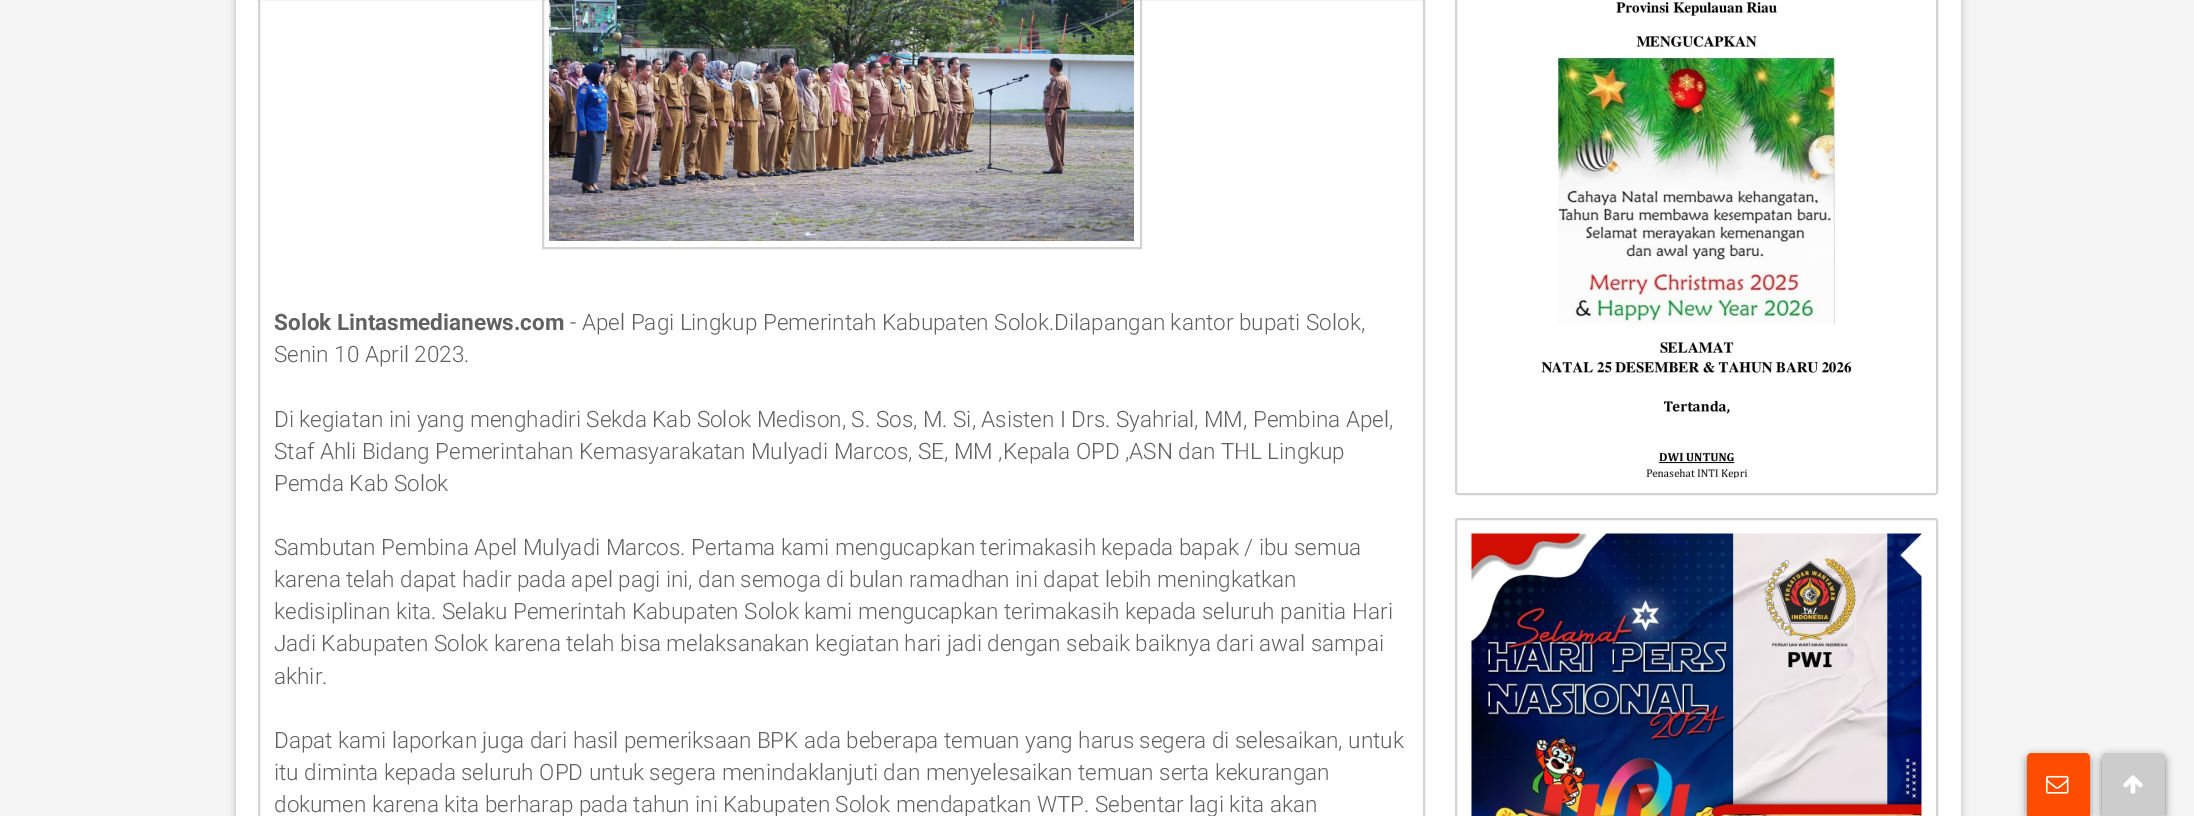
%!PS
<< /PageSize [2194 816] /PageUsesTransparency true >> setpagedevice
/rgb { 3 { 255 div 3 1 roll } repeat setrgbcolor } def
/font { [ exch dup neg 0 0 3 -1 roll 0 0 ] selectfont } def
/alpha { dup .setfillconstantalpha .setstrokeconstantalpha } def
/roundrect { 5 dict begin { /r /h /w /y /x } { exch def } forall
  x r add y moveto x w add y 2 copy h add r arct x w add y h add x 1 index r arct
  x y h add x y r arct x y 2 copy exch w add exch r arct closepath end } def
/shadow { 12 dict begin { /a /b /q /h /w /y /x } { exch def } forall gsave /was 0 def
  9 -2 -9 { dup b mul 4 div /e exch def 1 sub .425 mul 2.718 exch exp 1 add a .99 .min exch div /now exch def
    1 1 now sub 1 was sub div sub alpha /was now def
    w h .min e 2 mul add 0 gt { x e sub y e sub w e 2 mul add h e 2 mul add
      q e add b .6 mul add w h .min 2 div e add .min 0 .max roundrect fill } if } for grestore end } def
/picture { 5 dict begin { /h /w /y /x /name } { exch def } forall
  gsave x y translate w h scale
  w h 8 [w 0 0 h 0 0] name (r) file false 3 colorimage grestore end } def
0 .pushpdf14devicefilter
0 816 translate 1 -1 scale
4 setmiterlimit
245 245 245 rgb
0 0 2194 816 rectfill
0 0 0 rgb
236 -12 1725 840 0 4 0.25 shadow
255 255 255 rgb
236 0 1725 816 rectfill
211 211 211 rgb
2 setlinewidth
259 -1 1165 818 rectstroke
543 -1 598 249 rectstroke
(img/1.rgb) 549 0 585 241 picture
1456 -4 481 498 2 roundrect stroke
(img/2.rgb) 1541 2 311 476 picture
1456 519 481 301 2 roundrect stroke
(img/3.rgb) 1471 533 451 283 picture
0 0 0 rgb
2102 756 63 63 5 4 0.5 shadow
204 204 204 rgb
2107 753 moveto 2160 753 lineto 2163 753 2165 755 2165 758 curveto 2165 816 lineto 2102 816 lineto 2102 758 lineto 2102 755 2104 753 2107 753 curveto closepath fill
0 0 0 rgb
2027 756 63 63 5 4 0.5 shadow
255 77 0 rgb
2032 753 moveto 2085 753 lineto 2088 753 2090 755 2090 758 curveto 2090 816 lineto 2027 816 lineto 2027 758 lineto 2027 755 2029 753 2032 753 curveto closepath fill
(img/4.rgb) 2046 775 23 19 picture
(img/5.rgb) 2123 775 20 19 picture
/Roboto-Bold 22.5 font
97 97 97 rgb
274 330 moveto (Solok Lintasmedianews.com) show
/Roboto-Light 22.5 font
[
  [(- Apel Pagi Lingkup Pemerintah Kabupaten Solok.Dilapangan kantor bupati Solok,) 570 330]
  [(Senin 10 April 2023.) 274 362]
  [(Di kegiatan ini yang menghadiri Sekda Kab Solok Medison, S. Sos, M. Si, Asisten I Drs. Syahrial, MM, Pembina Apel,) 274 427]
  [(Staf Ahli Bidang Pemerintahan Kemasyarakatan Mulyadi Marcos, SE, MM ,Kepala OPD ,ASN dan THL Lingkup) 274 459]
  [(Pemda Kab Solok) 274 491]
  [(Sambutan Pembina Apel Mulyadi Marcos. Pertama kami mengucapkan terimakasih kepada bapak / ibu semua) 274 555]
  [(karena telah dapat hadir pada apel pagi ini, dan semoga di bulan ramadhan ini dapat lebih meningkatkan) 274 587]
  [(kedisiplinan kita. Selaku Pemerintah Kabupaten Solok kami mengucapkan terimakasih kepada seluruh panitia Hari) 274 619]
  [(Jadi Kabupaten Solok karena telah bisa melaksanakan kegiatan hari jadi dengan sebaik baiknya dari awal sampai) 274 651]
  [(akhir.) 274 684]
  [(Dapat kami laporkan juga dari hasil pemeriksaan BPK ada beberapa temuan yang harus segera di selesaikan, untuk) 274 748]
  [(itu diminta kepada seluruh OPD untuk segera menindaklanjuti dan menyelesaikan temuan serta kekurangan) 274 780]
  [(dokumen karena kita berharap pada tahun ini Kabupaten Solok mendapatkan WTP. Sebentar lagi kita akan) 274 812]
] { aload pop moveto show } forall
.poppdf14devicefilter showpage
